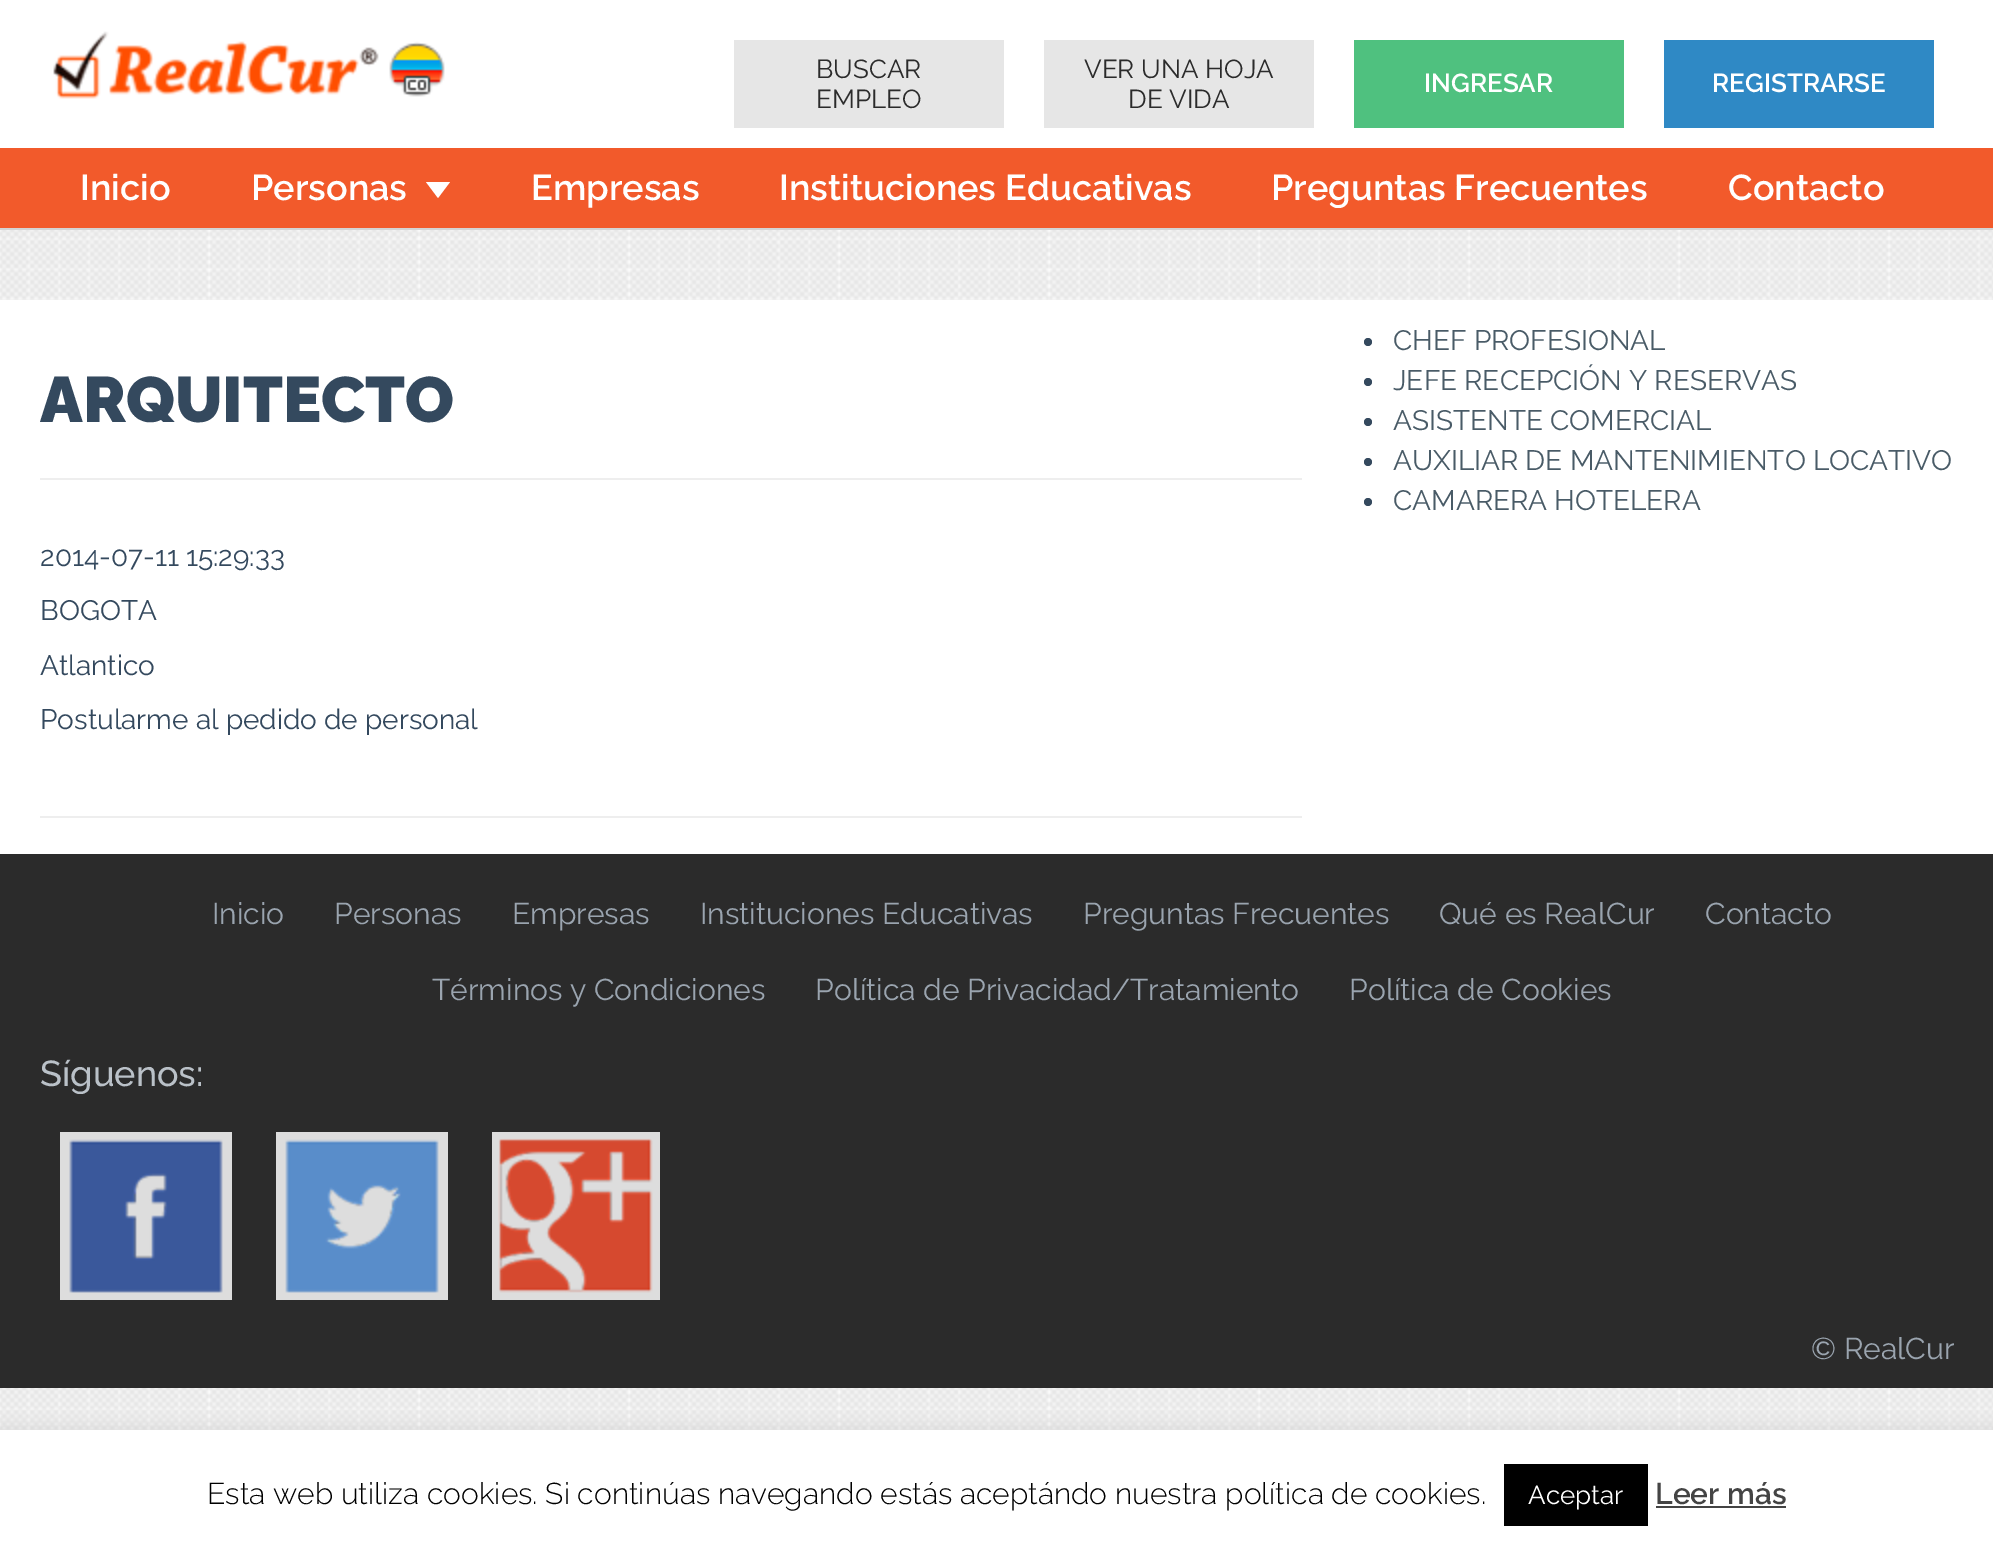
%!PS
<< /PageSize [1993 1550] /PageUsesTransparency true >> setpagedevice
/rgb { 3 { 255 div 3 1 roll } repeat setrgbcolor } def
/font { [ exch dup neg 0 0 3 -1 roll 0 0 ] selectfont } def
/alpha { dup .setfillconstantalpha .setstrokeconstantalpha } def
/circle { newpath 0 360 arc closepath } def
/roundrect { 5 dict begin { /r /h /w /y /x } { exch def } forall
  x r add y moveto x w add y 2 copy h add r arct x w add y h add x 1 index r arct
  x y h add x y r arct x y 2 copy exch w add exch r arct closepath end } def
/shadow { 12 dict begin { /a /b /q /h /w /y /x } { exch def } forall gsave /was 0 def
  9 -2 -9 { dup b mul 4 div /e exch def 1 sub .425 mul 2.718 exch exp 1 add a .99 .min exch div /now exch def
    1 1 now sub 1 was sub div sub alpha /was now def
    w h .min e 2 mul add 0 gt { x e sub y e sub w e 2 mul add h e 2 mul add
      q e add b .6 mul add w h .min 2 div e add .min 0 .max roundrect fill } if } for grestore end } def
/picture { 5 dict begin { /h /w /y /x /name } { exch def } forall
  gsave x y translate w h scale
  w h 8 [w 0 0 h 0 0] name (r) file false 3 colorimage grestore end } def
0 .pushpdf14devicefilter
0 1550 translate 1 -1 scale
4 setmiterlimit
255 255 255 rgb
0 0 1993 1550 rectfill
(img/1.rgb) 0 230 1993 1200 picture
(img/2.rgb) 53 31 392 68 picture
[
  [734 40 270 88 230 230 230]
  [1044 40 270 88 230 230 230]
  [1354 40 270 88 79 193 127]
  [1664 40 270 88 47 137 197]
  [0 148 1993 80 242 90 43]
  [0 228 1993 2 212 212 212]
] { aload pop rgb rectfill } forall
255 255 255 rgb
426 182 moveto 450 182 lineto 438 198 lineto closepath fill
[
  [0 300 1993 554 255 255 255]
  [40 816 1262 2 238 238 238]
  [40 478 1262 2 238 238 238]
] { aload pop rgb rectfill } forall
52 73 94 rgb
1368 342 4 circle fill
1368 382 4 circle fill
1368 422 4 circle fill
1368 462 4 circle fill
1368 502 4 circle fill
43 43 43 rgb
0 854 1993 534 rectfill
221 221 221 rgb
60 1132 172 168 rectfill
(img/3.rgb) 69 1139 154 154 picture
276 1132 172 168 rectfill
(img/4.rgb) 285 1139 154 154 picture
492 1132 168 168 rectfill
(img/5.rgb) 498 1138 155 155 picture
172 171 171 rgb
0 1428 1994 120 0 10 0.3 shadow
[
  [0 1430 1993 120 255 255 255]
  [1504 1464 144 62 0 0 0]
  [1656 1506 130 2 68 68 68]
] { aload pop rgb rectfill } forall
/Raleway-Regular 26 font
43 43 43 rgb
[
  [(BUSCAR) 816 78]
  [(EMPLEO) 816 108]
  [(VER UNA HOJA) 1084 78]
  [(DE VIDA) 1128 108]
] { aload pop moveto show } forall
/Raleway-SemiBold 26 font
255 255 255 rgb
1424 92 moveto (INGRESAR) show
1712 92 moveto (REGISTRARSE) show
/Raleway-SemiBold 36 font
[
  [(Inicio) 80 200]
  [(Personas) 251 200]
  [(Empresas) 531 200]
  [(Instituciones Educativas) 779 200]
  [(Preguntas Frecuentes) 1271 200]
  [(Contacto) 1728 200]
] { aload pop moveto show } forall
/Raleway-Black 64 font
52 73 94 rgb
40 422 moveto (ARQUITECTO) show
/Raleway-Regular 28 font
[
  [(2014-07-11 15:29:33) 40 566]
  [(BOGOTA) 40 620]
  [(Atlantico) 40 675]
  [(Postularme al pedido de personal) 40 729]
] { aload pop moveto show } forall
73 91 103 rgb
[
  [(CHEF PROFESIONAL) 1393 350]
  [(JEFE RECEPCIÓN Y RESERVAS) 1393 390]
  [(ASISTENTE COMERCIAL) 1393 430]
  [(AUXILIAR DE MANTENIMIENTO LOCATIVO) 1393 470]
  [(CAMARERA HOTELERA) 1393 510]
] { aload pop moveto show } forall
/Raleway-Regular 30 font
154 164 175 rgb
[
  [(Inicio) 212 924]
  [(Personas) 334 924]
  [(Empresas) 512 924]
  [(Instituciones Educativas) 700 924]
  [(Preguntas Frecuentes) 1083 924]
  [(Qué es RealCur) 1439 924]
  [(Contacto) 1705 924]
  [(Términos y Condiciones) 432 1000]
  [(Política de Privacidad/Tratamiento) 815 1000]
  [(Política de Cookies) 1349 1000]
] { aload pop moveto show } forall
/Raleway-Medium 36 font
186 193 200 rgb
40 1086 moveto (Síguenos:) show
/Raleway-Regular 30 font
154 164 175 rgb
1811 1359 moveto (© RealCur) show
/Raleway-Light 30 font
0 0 0 rgb
207 1504 moveto (Esta web utiliza cookies. Si continúas navegando estás aceptándo nuestra política de cookies.) show
/Raleway-Regular 26 font
255 255 255 rgb
1528 1504 moveto (Aceptar) show
/Raleway-SemiBold 30 font
68 68 68 rgb
1655 1504 moveto (Leer más) show
.poppdf14devicefilter showpage
